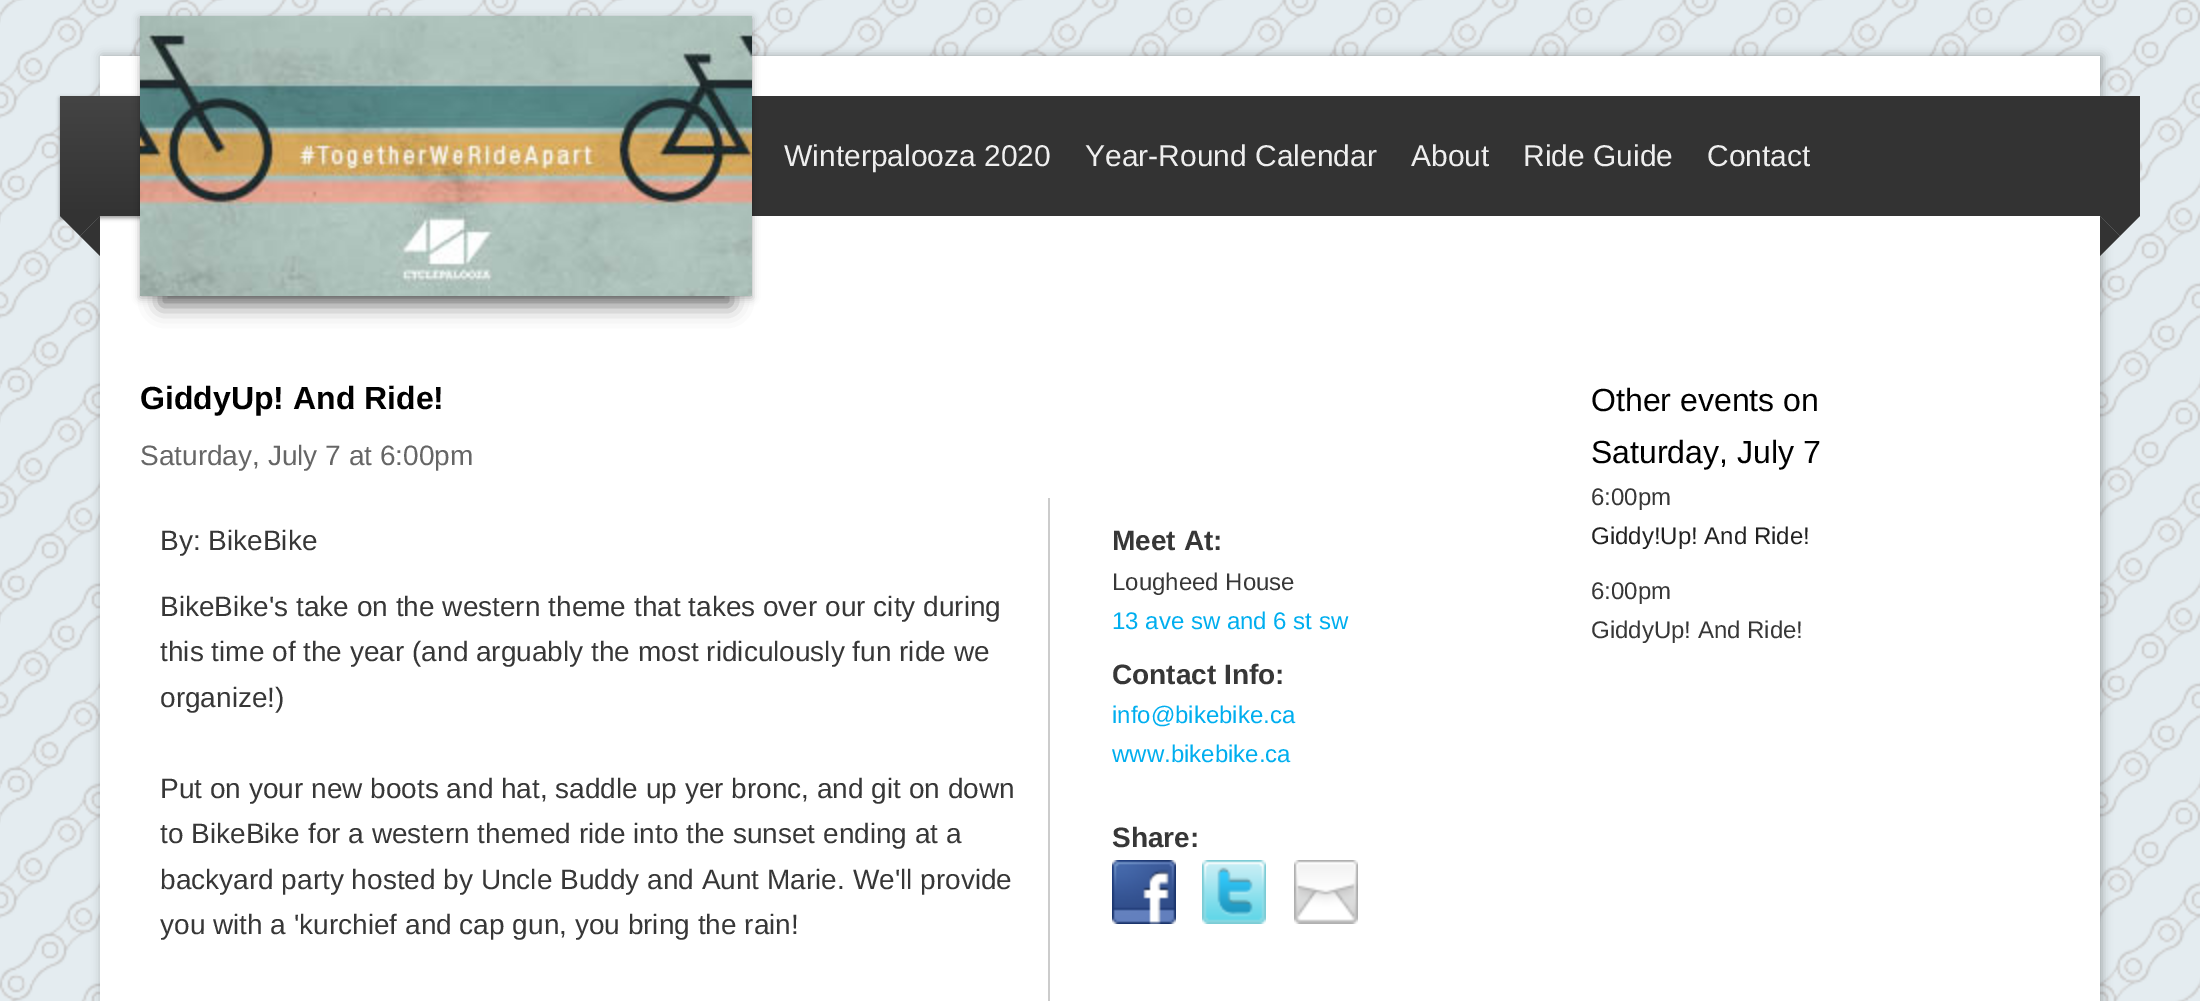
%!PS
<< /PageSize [2200 1001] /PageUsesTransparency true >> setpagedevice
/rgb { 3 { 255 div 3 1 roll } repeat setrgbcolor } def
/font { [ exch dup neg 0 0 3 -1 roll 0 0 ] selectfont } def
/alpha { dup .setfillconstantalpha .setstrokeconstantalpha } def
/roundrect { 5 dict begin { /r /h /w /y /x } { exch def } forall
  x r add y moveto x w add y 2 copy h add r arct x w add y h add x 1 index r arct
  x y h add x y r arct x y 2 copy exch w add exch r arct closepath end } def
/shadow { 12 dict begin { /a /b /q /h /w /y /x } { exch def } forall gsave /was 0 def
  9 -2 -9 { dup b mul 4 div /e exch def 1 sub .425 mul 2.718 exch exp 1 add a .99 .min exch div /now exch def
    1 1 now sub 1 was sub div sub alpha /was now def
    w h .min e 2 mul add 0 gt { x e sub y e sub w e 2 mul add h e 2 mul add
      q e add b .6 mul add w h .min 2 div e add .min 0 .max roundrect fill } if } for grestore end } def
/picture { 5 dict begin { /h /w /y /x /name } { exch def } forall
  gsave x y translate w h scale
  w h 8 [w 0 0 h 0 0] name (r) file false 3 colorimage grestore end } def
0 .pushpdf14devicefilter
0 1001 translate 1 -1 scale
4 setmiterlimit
255 255 255 rgb
0 0 2200 1001 rectfill
(img/1.rgb) 0 0 2200 1001 picture
0 0 0 rgb
102 56 2000 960 0 5 0.3 shadow
255 255 255 rgb
100 56 2000 945 rectfill
0 0 0 rgb
60 98 80 120 0 2 0.4 shadow
gsave 60 96 moveto 140 96 lineto 140 216 lineto 60 216 lineto closepath clip newpath
<< /ShadingType 2 /ColorSpace /DeviceRGB /Coords [100 96 100 216] /Extend [true true] /Function << /FunctionType 2 /Domain [0 1] /C0 [0.267 0.267 0.267] /C1 [0.2 0.2 0.2] /N 1 >> >> shfill grestore
51 51 51 rgb
752 96 1388 120 rectfill
0 0 0 rgb
140 18 612 280 0 4 0.3 shadow
160 66 572 240 0 10 0.5 shadow
(img/2.rgb) 140 16 612 280 picture
51 51 51 rgb
60 216 moveto 100 216 lineto 80 236 lineto closepath fill
100 216 moveto 100 256 lineto 80 236 lineto closepath fill
2100 216 moveto 2140 216 lineto 2120 236 lineto closepath fill
2100 256 moveto 2100 216 lineto 2120 236 lineto closepath fill
204 204 204 rgb
1048 498 2 503 rectfill
(img/3.rgb) 1112 860 64 64 picture
(img/4.rgb) 1202 860 64 64 picture
(img/5.rgb) 1294 860 64 64 picture
/LiberationSans-Regular 30 font
238 238 238 rgb
[
  [(Winterpalooza 2020) 784 166]
  [(Year-Round Calendar) 1085 166]
  [(About) 1411 166]
  [(Ride Guide) 1523 166]
  [(Contact) 1707 166]
] { aload pop moveto show } forall
/LiberationSans-Bold 32 font
0 0 0 rgb
140 409 moveto (GiddyUp! And Ride!) show
/LiberationSans-Regular 28 font
102 102 102 rgb
140 465 moveto (Saturday, July 7 at 6:00pm) show
55 55 55 rgb
[
  [(By: BikeBike) 160 550]
  [(BikeBike's take on the western theme that takes over our city during) 160 616]
  [(this time of the year \(and arguably the most ridiculously fun ride we) 160 661]
  [(organize!\)) 160 707]
  [(Put on your new boots and hat, saddle up yer bronc, and git on down) 160 798]
  [(to BikeBike for a western themed ride into the sunset ending at a) 160 843]
  [(backyard party hosted by Uncle Buddy and Aunt Marie. We'll provide) 160 889]
  [(you with a 'kurchief and cap gun, you bring the rain!) 160 934]
] { aload pop moveto show } forall
/LiberationSans-Bold 28 font
1112 550 moveto (Meet At:) show
/LiberationSans-Regular 24 font
1112 590 moveto (Lougheed House) show
0 174 239 rgb
1112 629 moveto (13 ave sw and 6 st sw) show
/LiberationSans-Bold 28 font
55 55 55 rgb
1112 684 moveto (Contact Info:) show
/LiberationSans-Regular 24 font
0 174 239 rgb
1112 723 moveto (info@bikebike.ca) show
1112 762 moveto (www.bikebike.ca) show
/LiberationSans-Bold 28 font
55 55 55 rgb
1112 847 moveto (Share:) show
/LiberationSans-Regular 32 font
0 0 0 rgb
1591 411 moveto (Other events on) show
1591 463 moveto (Saturday, July 7) show
/LiberationSans-Regular 24 font
55 55 55 rgb
1591 505 moveto (6:00pm) show
34 34 34 rgb
1591 544 moveto (Giddy!Up! And Ride!) show
55 55 55 rgb
1591 599 moveto (6:00pm) show
1591 638 moveto (GiddyUp! And Ride!) show
.poppdf14devicefilter showpage
